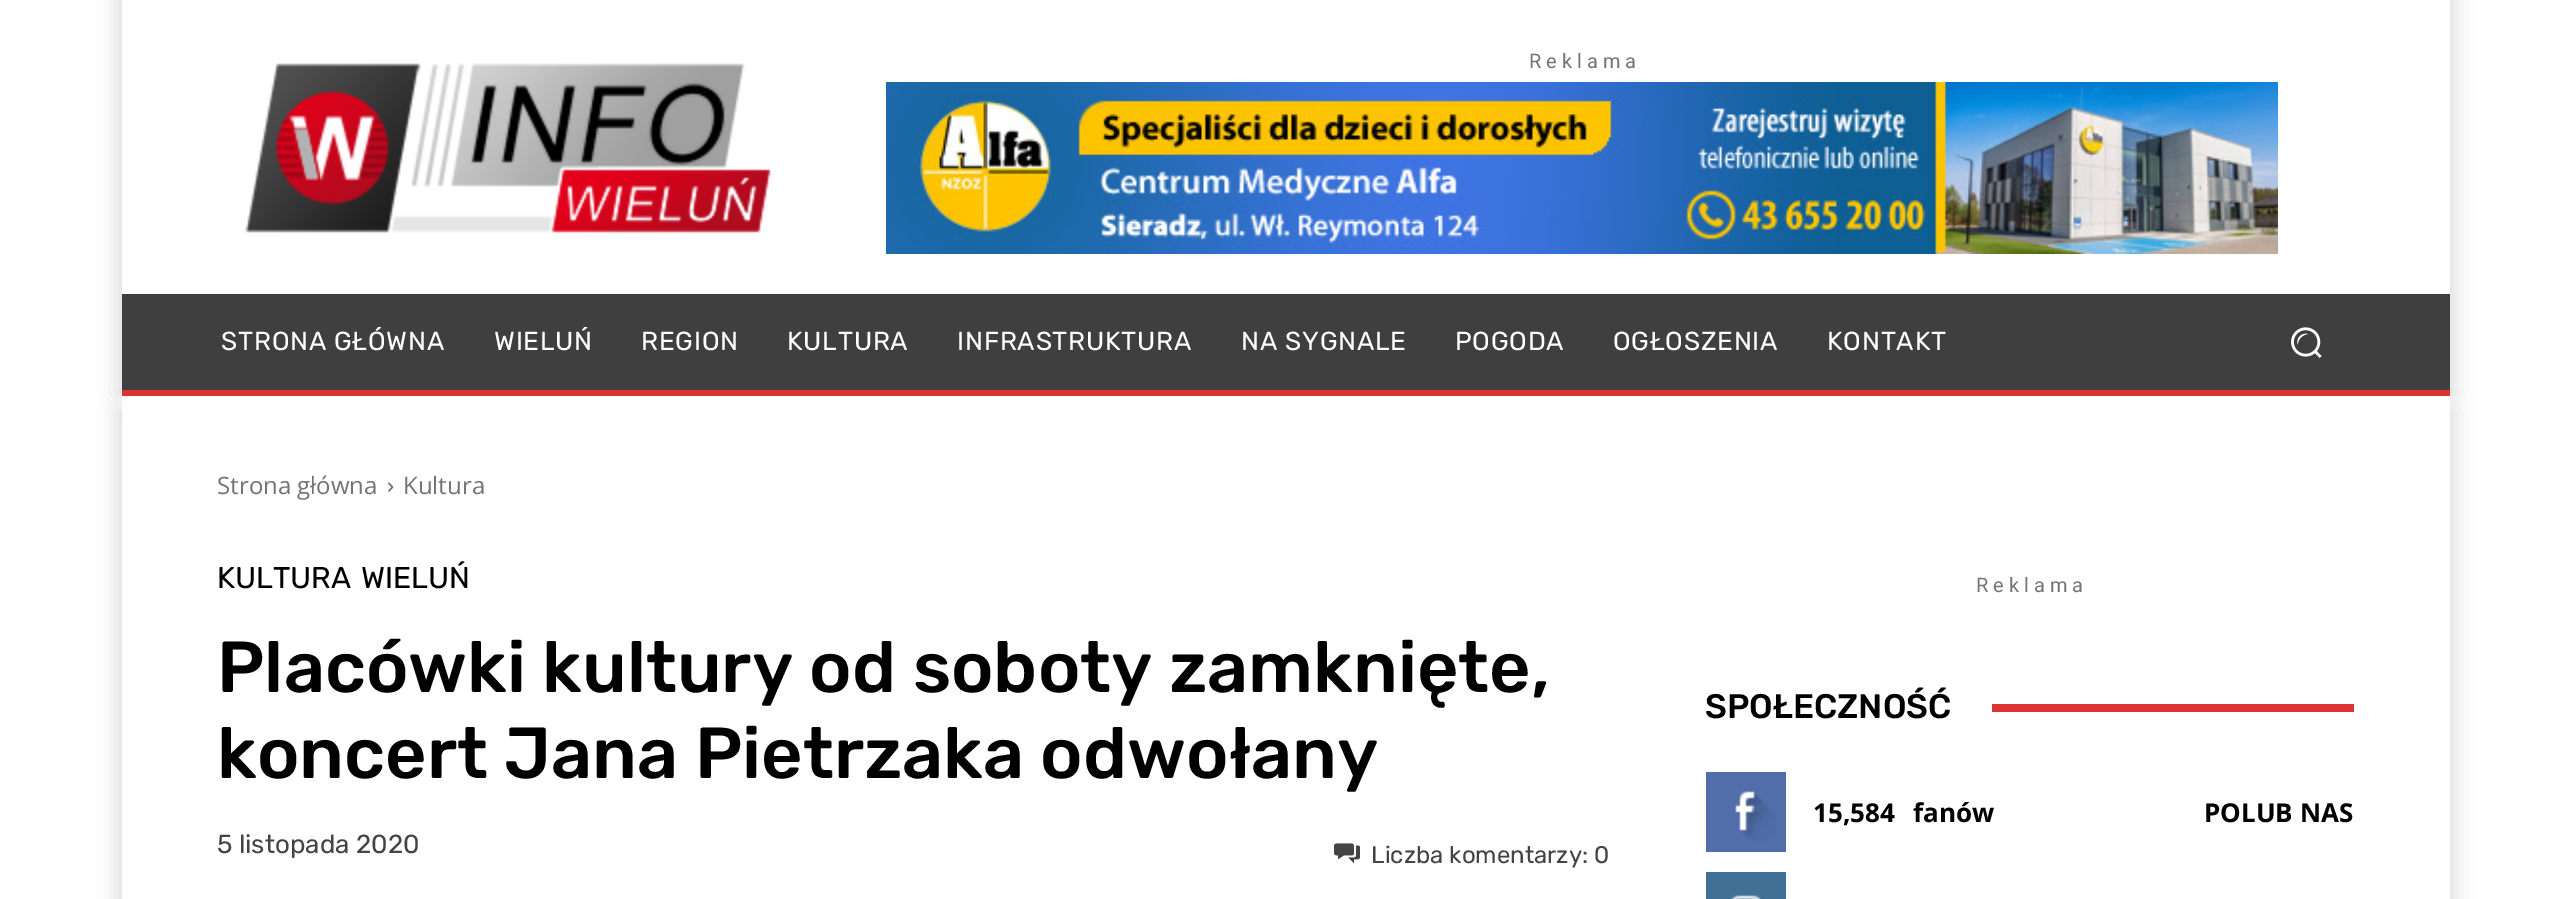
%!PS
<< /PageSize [2569 899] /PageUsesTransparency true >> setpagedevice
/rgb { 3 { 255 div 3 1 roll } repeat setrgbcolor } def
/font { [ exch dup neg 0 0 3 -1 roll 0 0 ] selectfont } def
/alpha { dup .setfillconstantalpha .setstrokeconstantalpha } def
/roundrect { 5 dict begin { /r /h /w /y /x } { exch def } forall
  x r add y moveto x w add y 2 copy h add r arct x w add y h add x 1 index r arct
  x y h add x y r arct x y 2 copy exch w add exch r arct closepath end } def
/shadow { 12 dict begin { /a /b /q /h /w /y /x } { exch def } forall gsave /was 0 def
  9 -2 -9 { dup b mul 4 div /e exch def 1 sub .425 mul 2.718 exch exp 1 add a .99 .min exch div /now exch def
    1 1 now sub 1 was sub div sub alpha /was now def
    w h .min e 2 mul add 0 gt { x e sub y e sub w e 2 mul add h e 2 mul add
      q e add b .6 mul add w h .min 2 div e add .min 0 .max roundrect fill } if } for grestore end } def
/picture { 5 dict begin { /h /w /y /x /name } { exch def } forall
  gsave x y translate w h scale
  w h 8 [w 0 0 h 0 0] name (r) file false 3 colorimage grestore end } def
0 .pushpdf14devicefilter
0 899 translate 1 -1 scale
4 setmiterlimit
255 255 255 rgb
0 0 2569 899 rectfill
0 0 0 rgb
116 -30 2340 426 0 10 0.12 shadow
gsave
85 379 moveto 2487 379 lineto 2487 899 lineto 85 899 lineto closepath 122 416 moveto 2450 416 lineto 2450 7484 lineto 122 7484 lineto closepath eoclip newpath
116 410 2340 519 0 10 0.12 shadow
grestore
255 255 255 rgb
122 0 2328 416 rectfill
(img/1.rgb) 886 82 1392 172 picture
(img/2.rgb) 245 63 526 170 picture
63 63 63 rgb
122 294 2328 96 rectfill
(img/3.rgb) 2291 327 31 31 picture
221 51 51 rgb
122 390 2328 6 rectfill
(img/4.rgb) 388 482 6 10 picture
(img/5.rgb) 1334 843 26 21 picture
1992 704 362 8 rectfill
81 110 171 rgb
1706 772 80 80 rectfill
(img/6.rgb) 1735 791 41 50 picture
65 112 150 rgb
1706 872 80 27 rectfill
(img/7.rgb) 1731 895 30 4 picture
/Roboto-Regular 20 font
116 116 116 rgb
1529 68 moveto (R e k l a m a) show
/Rubik-Regular 26 font
255 255 255 rgb
221 350 moveto 0.75 0 (STRONA GŁÓWNA) ashow
494 350 moveto 0.75 0 (WIELUŃ) ashow
641 350 moveto 0.75 0 (REGION) ashow
787 350 moveto 0.75 0 (KULTURA) ashow
957 350 moveto 0.75 0 (INFRASTRUKTURA) ashow
1241 350 moveto 0.75 0 (NA SYGNALE) ashow
1455 350 moveto 0.75 0 (POGODA) ashow
1613 350 moveto 0.75 0 (OGŁOSZENIA) ashow
1827 350 moveto 0.75 0 (KONTAKT) ashow
/OpenSans-Regular 24 font
116 116 116 rgb
217 494 moveto (Strona główna) show
403 494 moveto (Kultura) show
/Rubik-Regular 30 font
0 0 0 rgb
217 588 moveto (KULTURA) show
361 588 moveto (WIELUŃ) show
/Rubik-Medium 72 font
217 692 moveto (Placówki kultury od soboty zamknięte,) show
217 778 moveto (koncert Jana Pietrzaka odwołany) show
/Rubik-Regular 26 font
68 68 68 rgb
217 853 moveto (5 listopada 2020) show
/Rubik-Regular 24 font
1371 863 moveto (Liczba komentarzy: 0) show
/Roboto-Regular 20 font
116 116 116 rgb
1976 592 moveto (R e k l a m a) show
/Rubik-Medium 34 font
0 0 0 rgb
1705 718 moveto (SPOŁECZNOŚĆ) show
/OpenSans-Bold 26 font
[
  [(15,584) 1813 822]
  [(fanów) 1913 822]
  [(POLUB NAS) 2204 822]
] { aload pop moveto show } forall
.poppdf14devicefilter showpage
